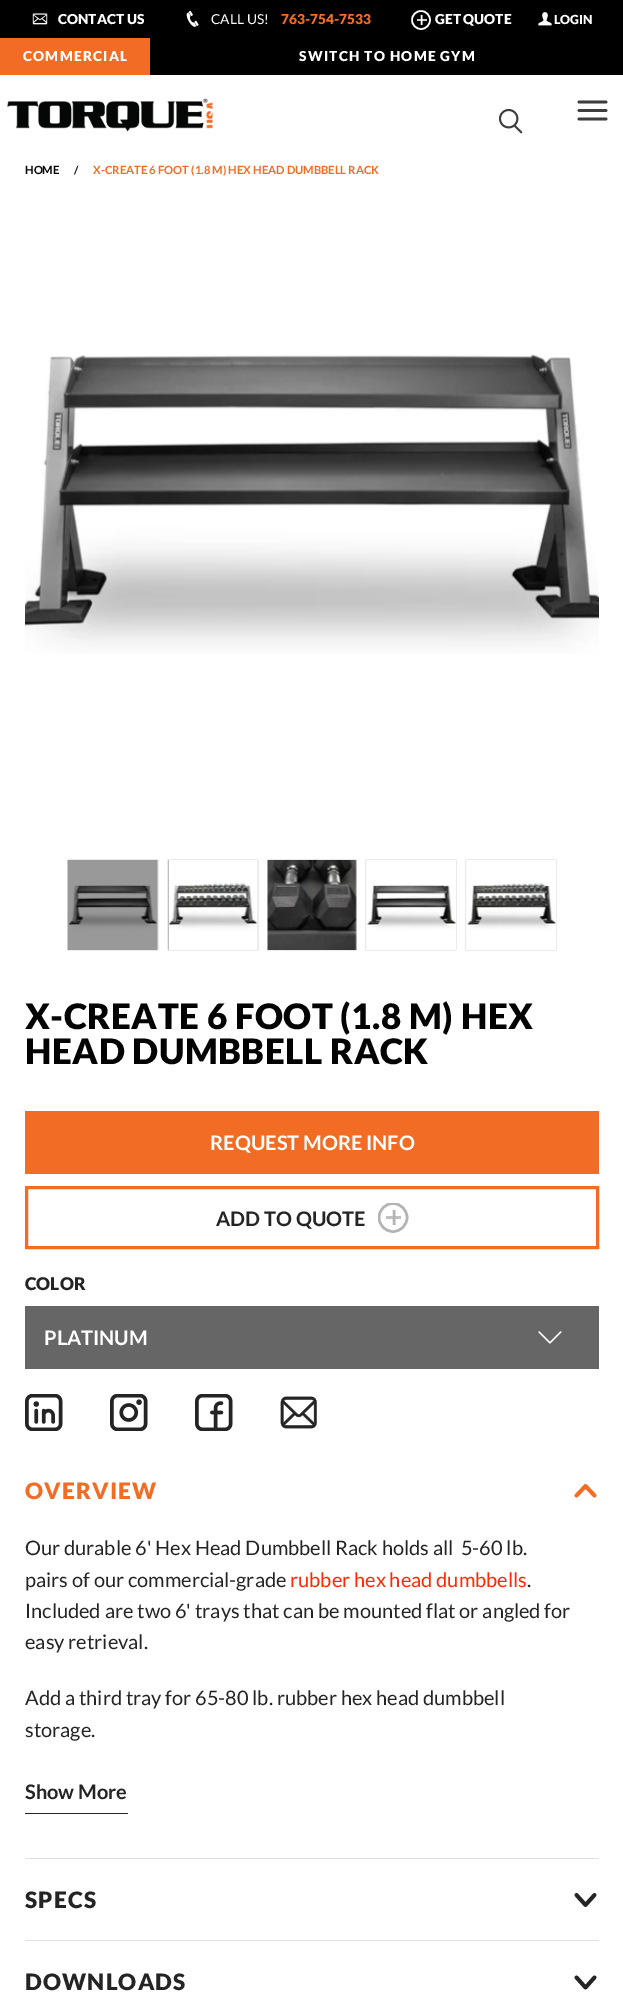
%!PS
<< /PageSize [623 1998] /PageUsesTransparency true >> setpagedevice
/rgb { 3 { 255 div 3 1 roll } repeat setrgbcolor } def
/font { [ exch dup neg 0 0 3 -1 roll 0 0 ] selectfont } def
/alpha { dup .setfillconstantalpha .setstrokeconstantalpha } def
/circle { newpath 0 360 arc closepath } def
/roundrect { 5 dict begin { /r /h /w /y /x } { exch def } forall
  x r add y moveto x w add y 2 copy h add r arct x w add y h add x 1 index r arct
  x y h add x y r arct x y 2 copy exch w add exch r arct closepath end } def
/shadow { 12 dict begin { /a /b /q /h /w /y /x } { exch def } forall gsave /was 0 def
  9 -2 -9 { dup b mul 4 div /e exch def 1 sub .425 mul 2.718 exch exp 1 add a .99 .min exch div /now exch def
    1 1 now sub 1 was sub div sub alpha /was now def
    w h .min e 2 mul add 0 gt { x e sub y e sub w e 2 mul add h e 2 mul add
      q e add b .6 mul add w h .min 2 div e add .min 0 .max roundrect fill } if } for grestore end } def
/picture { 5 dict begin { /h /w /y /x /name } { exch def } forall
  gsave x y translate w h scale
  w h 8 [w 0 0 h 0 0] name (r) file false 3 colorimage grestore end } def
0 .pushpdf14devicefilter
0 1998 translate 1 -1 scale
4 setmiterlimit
255 255 255 rgb
0 0 623 1998 rectfill
0 0 0 rgb
0 0 623 75 rectfill
(img/1.rgb) 32 13 16 12 picture
(img/2.rgb) 186 10 13 17 picture
204 204 204 rgb
417 19 10 2 rectfill
255 255 255 rgb
1.6 setlinewidth
421.5 25 moveto 421.5 15 lineto stroke
421 20 9 circle stroke
(img/3.rgb) 538 12 14 14 picture
243 108 35 rgb
0 38 150 37 rectfill
(img/4.rgb) 7 98 206 34 picture
(img/5.rgb) 499 109 24 25 picture
61 61 61 rgb
2.7 setlinewidth
1 setlinecap
1 setlinejoin
579 102 moveto 606 102 lineto 579 110.5 moveto 606 110.5 lineto 579 119 moveto 606 119 lineto stroke
(img/6.rgb) 25 354 574 300 picture
0 0 0 rgb
68 860 90 90 0 0.5 0.3 shadow
(img/7.rgb) 67 860 91 90 picture
168 860 90 90 0 0.5 0.3 shadow
(img/8.rgb) 169 860 89 90 picture
268 860 88 90 0 0.5 0.3 shadow
(img/9.rgb) 267 860 90 90 picture
366 860 90 90 0 0.5 0.3 shadow
(img/10.rgb) 366 860 90 90 picture
466 860 90 90 0 0.5 0.3 shadow
(img/11.rgb) 466 860 90 90 picture
243 108 35 rgb
25 1111 574 63 rectfill
3 setlinewidth
0 setlinecap
0 setlinejoin
26.5 1187.5 571 60 rectstroke
192 193 192 rgb
386 1216 15 3 rectfill
179 180 179 rgb
2.5 setlinewidth
394 1225 moveto 394 1210 lineto stroke
gsave
378 1203 31 30 rectclip
393 1217.5 14 circle stroke
grestore
102 102 102 rgb
25 1306 574 63 rectfill
(img/12.rgb) 538 1331 24 13 picture
(img/13.rgb) 25 1394 38 37 picture
(img/14.rgb) 110 1394 38 37 picture
(img/15.rgb) 195 1394 38 37 picture
(img/16.rgb) 280 1396 37 33 picture
223 223 223 rgb
25 1858 574 1 rectfill
243 108 35 rgb
3.8 setlinewidth
1 setlinecap
1 setlinejoin
594.5 1495.5 moveto 585.5 1486 lineto 576.5 1495.5 lineto stroke
36 36 36 rgb
25 1813 103 1 rectfill
223 223 223 rgb
25 1940 574 1 rectfill
36 36 36 rgb
576.5 1895 moveto 585.5 1905 lineto 594.5 1895 lineto stroke
576.5 1977.5 moveto 585.5 1987.5 lineto 594.5 1977.5 lineto stroke
/Lato-Black 13.75 font
255 255 255 rgb
58 24 moveto (CONTACT US) show
/Lato-Regular 13.75 font
211 24 moveto (CALL US!) show
/Lato-Black 13.75 font
243 108 35 rgb
281 24 moveto (763-754-7533) show
255 255 255 rgb
435 24 moveto (GET QUOTE) show
/Lato-Black 12.5 font
554 24 moveto (LOGIN) show
/Lato-Black 13.75 font
23 61 moveto 1.2 0 (COMMERCIAL) ashow
299 61 moveto 1.2 0 (SWITCH TO HOME GYM) ashow
/Lato-Bold 11.25 font
3 3 3 rgb
25 174 moveto (HOME) show
74 174 moveto (/) show
243 108 35 rgb
93 174 moveto (X-CREATE 6 FOOT \(1.8 M\) HEX HEAD DUMBBELL RACK) show
/Lato-Black 35 font
3 3 3 rgb
25 1029 moveto 0.5 0 (X-CREATE 6 FOOT \(1.8 M\) HEX) ashow
25 1064 moveto 0.5 0 (HEAD DUMBBELL RACK) ashow
/Lato-Bold 20 font
255 255 255 rgb
210 1150 moveto (REQUEST MORE INFO) show
36 36 36 rgb
216 1226 moveto (ADD TO QUOTE) show
/Lato-Black 17.5 font
25 1290 moveto (COLOR) show
/Lato-Bold 20 font
255 255 255 rgb
44 1345 moveto (PLATINUM) show
/Lato-Black 22.5 font
243 108 35 rgb
25 1499 moveto 1.2 0 (OVERVIEW) ashow
/Lato-Regular 20 font
36 36 36 rgb
25 1555 moveto (Our durable 6' Hex Head Dumbbell Rack holds all  5-60 lb.) show
25 1587 moveto (pairs of our commercial-grade) show
255 42 0 rgb
290 1587 moveto (rubber hex head dumbbells) show
36 36 36 rgb
[
  [(.) 527 1587]
  [(Included are two 6' trays that can be mounted flat or angled for) 25 1618]
  [(easy retrieval.) 25 1649]
  [(Add a third tray for 65-80 lb. rubber hex head dumbbell) 25 1705]
  [(storage.) 25 1737]
] { aload pop moveto show } forall
/Lato-Bold 20 font
25 1799 moveto (Show More) show
/Lato-Black 22.5 font
25 1908 moveto 1.2 0 (SPECS) ashow
25 1990 moveto 1.2 0 (DOWNLOADS) ashow
.poppdf14devicefilter showpage
